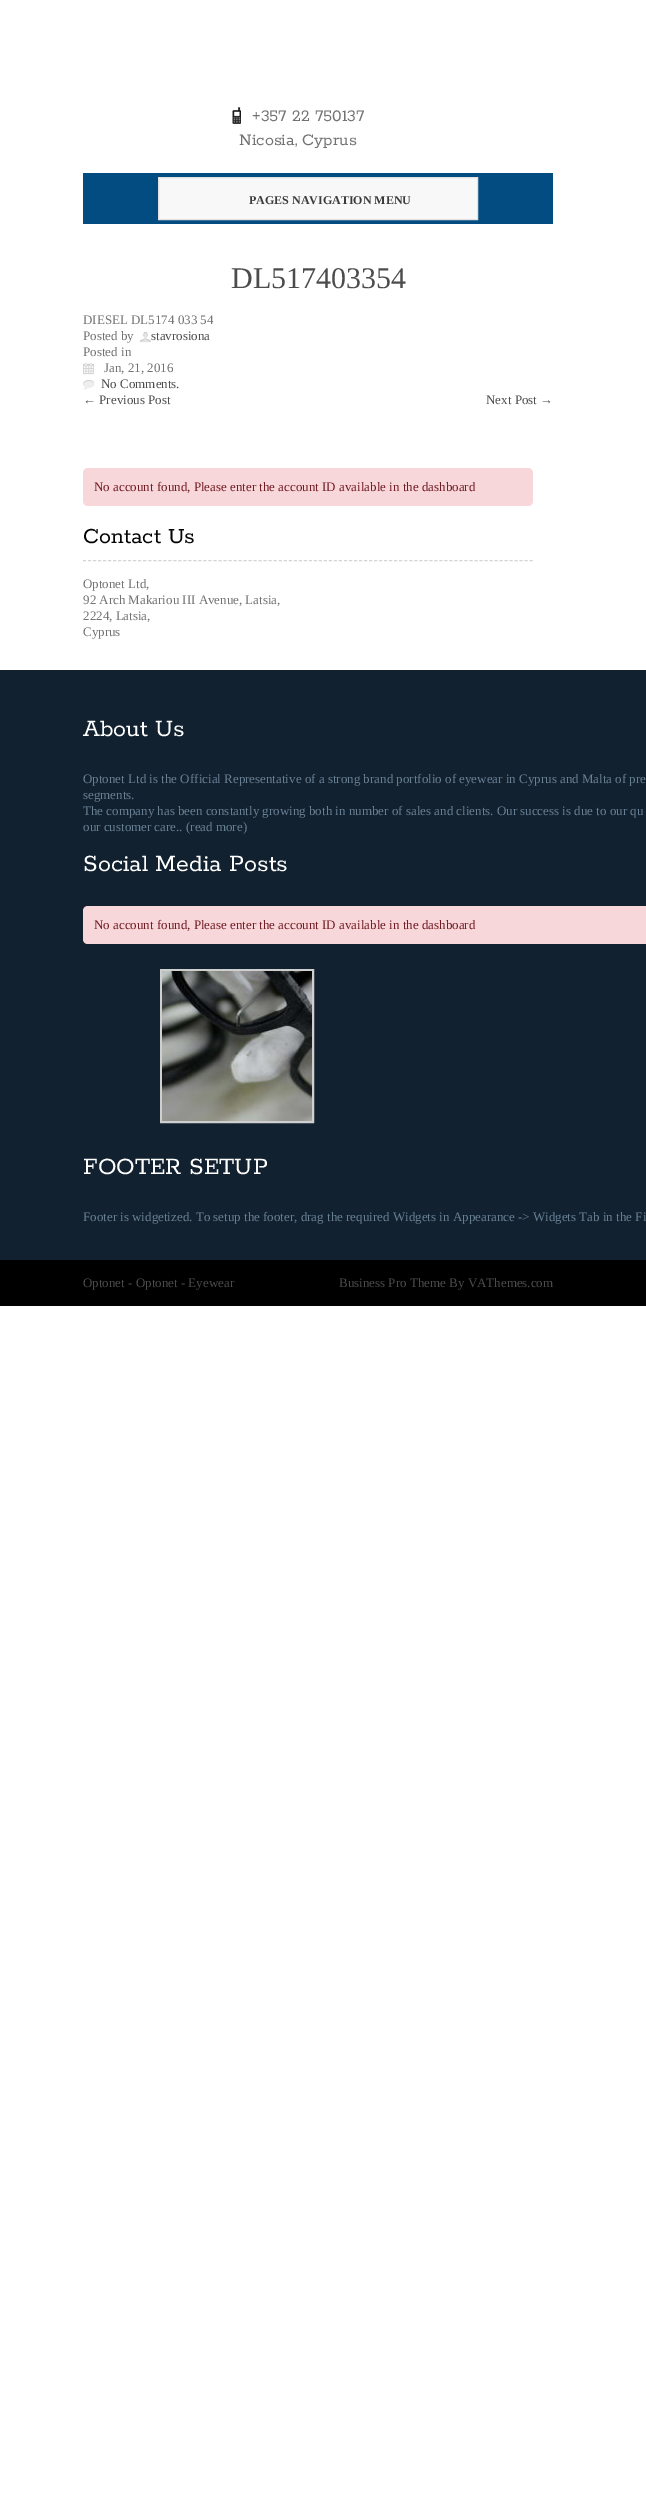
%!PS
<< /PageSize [646 2495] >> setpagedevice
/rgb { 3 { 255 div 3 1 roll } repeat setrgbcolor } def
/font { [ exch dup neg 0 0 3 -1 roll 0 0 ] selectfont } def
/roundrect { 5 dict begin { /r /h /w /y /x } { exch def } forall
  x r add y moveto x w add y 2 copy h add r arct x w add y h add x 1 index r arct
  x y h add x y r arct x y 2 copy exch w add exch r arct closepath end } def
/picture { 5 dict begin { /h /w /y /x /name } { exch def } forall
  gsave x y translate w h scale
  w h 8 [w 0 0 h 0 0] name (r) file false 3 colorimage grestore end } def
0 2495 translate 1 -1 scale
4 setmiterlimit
255 255 255 rgb
0 0 646 2495 rectfill
(img/1.rgb) 232 107 9 17 picture
3 76 129 rgb
83 173 470 51 rectfill
248 248 248 rgb
158.5 177.5 moveto 477.5 177.5 lineto 477.5 219.5 lineto 158.5 219.5 lineto closepath gsave fill grestore
226 224 224 rgb
stroke
(img/2.rgb) 140 332 11 11 picture
(img/3.rgb) 83 363 11 12 picture
(img/4.rgb) 83 380 11 10 picture
248 215 218 rgb
83 468 450 38 5 roundrect fill
213 213 216 rgb
[3 2.02] 0 setdash
83 560.5 moveto 533 560.5 lineto stroke
18 33 47 rgb
0 670 646 590 rectfill
248 215 218 rgb
88 906 moveto 646 906 lineto 646 944 lineto 88 944 lineto 85 944 83 942 83 939 curveto 83 911 lineto 83 908 85 906 88 906 curveto closepath fill
207 207 207 rgb
2 setlinewidth
[] 0 setdash
161 970 152 152 rectstroke
(img/5.rgb) 162 971 150 150 picture
0 0 0 rgb
0 1260 646 46 rectfill
/Rokkitt-Regular 18 font
113 114 115 rgb
252 121 moveto (+357 22 750137) show
239 145 moveto (Nicosia, Cyprus) show
/LiberationSerif-Bold 12 font
59 59 59 rgb
249 204 moveto (PAGES NAVIGATION MENU) show
/LiberationSerif-Regular 30 font
77 76 76 rgb
231 288 moveto (DL517403354) show
/LiberationSerif-Regular 13 font
113 114 115 rgb
83 324 moveto (DIESEL DL5174 033 54) show
83 340 moveto (Posted by) show
77 76 76 rgb
151 340 moveto (stavrosiona) show
113 114 115 rgb
83 356 moveto (Posted in) show
104 372 moveto (Jan, 21, 2016) show
77 76 76 rgb
[
  [(No Comments.) 101 388]
  [(← Previous Post) 83 404]
  [(Next Post →) 486 404]
] { aload pop moveto show } forall
114 28 36 rgb
94 491 moveto (No account found, Please enter the account ID available in the dashboard) show
/Rokkitt-Regular 24 font
4 4 4 rgb
83 543 moveto (Contact Us) show
/LiberationSerif-Regular 13 font
113 114 115 rgb
[
  [(Optonet Ltd,) 83 588]
  [(92 Arch Makariou III Avenue, Latsia,) 83 604]
  [(2224, Latsia,) 83 620]
  [(Cyprus) 83 636]
] { aload pop moveto show } forall
/Rokkitt-Regular 26 font
255 255 255 rgb
83 736 moveto (About Us) show
/LiberationSerif-Regular 13 font
104 128 148 rgb
[
  [(Optonet Ltd is the Official Representative of a strong brand portfolio of eyewear in Cyprus and Malta of pre) 83 783]
  [(segments.) 83 799]
  [(The company has been constantly growing both in number of sales and clients. Our success is due to our qu) 83 815]
  [(our customer care.. \(read more\)) 83 831]
] { aload pop moveto show } forall
/Rokkitt-Regular 26 font
255 255 255 rgb
83 871 moveto (Social Media Posts) show
/LiberationSerif-Regular 13 font
114 28 36 rgb
94 929 moveto (No account found, Please enter the account ID available in the dashboard) show
/Rokkitt-Regular 26 font
255 255 255 rgb
83 1174 moveto (FOOTER SETUP) show
/LiberationSerif-Regular 13 font
104 128 148 rgb
83 1221 moveto (Footer is widgetized. To setup the footer, drag the required Widgets in Appearance -> Widgets Tab in the Fi) show
77 76 76 rgb
83 1287 moveto (Optonet - Optonet - Eyewear) show
339 1287 moveto (Business Pro Theme By VAThemes.com) show
showpage
